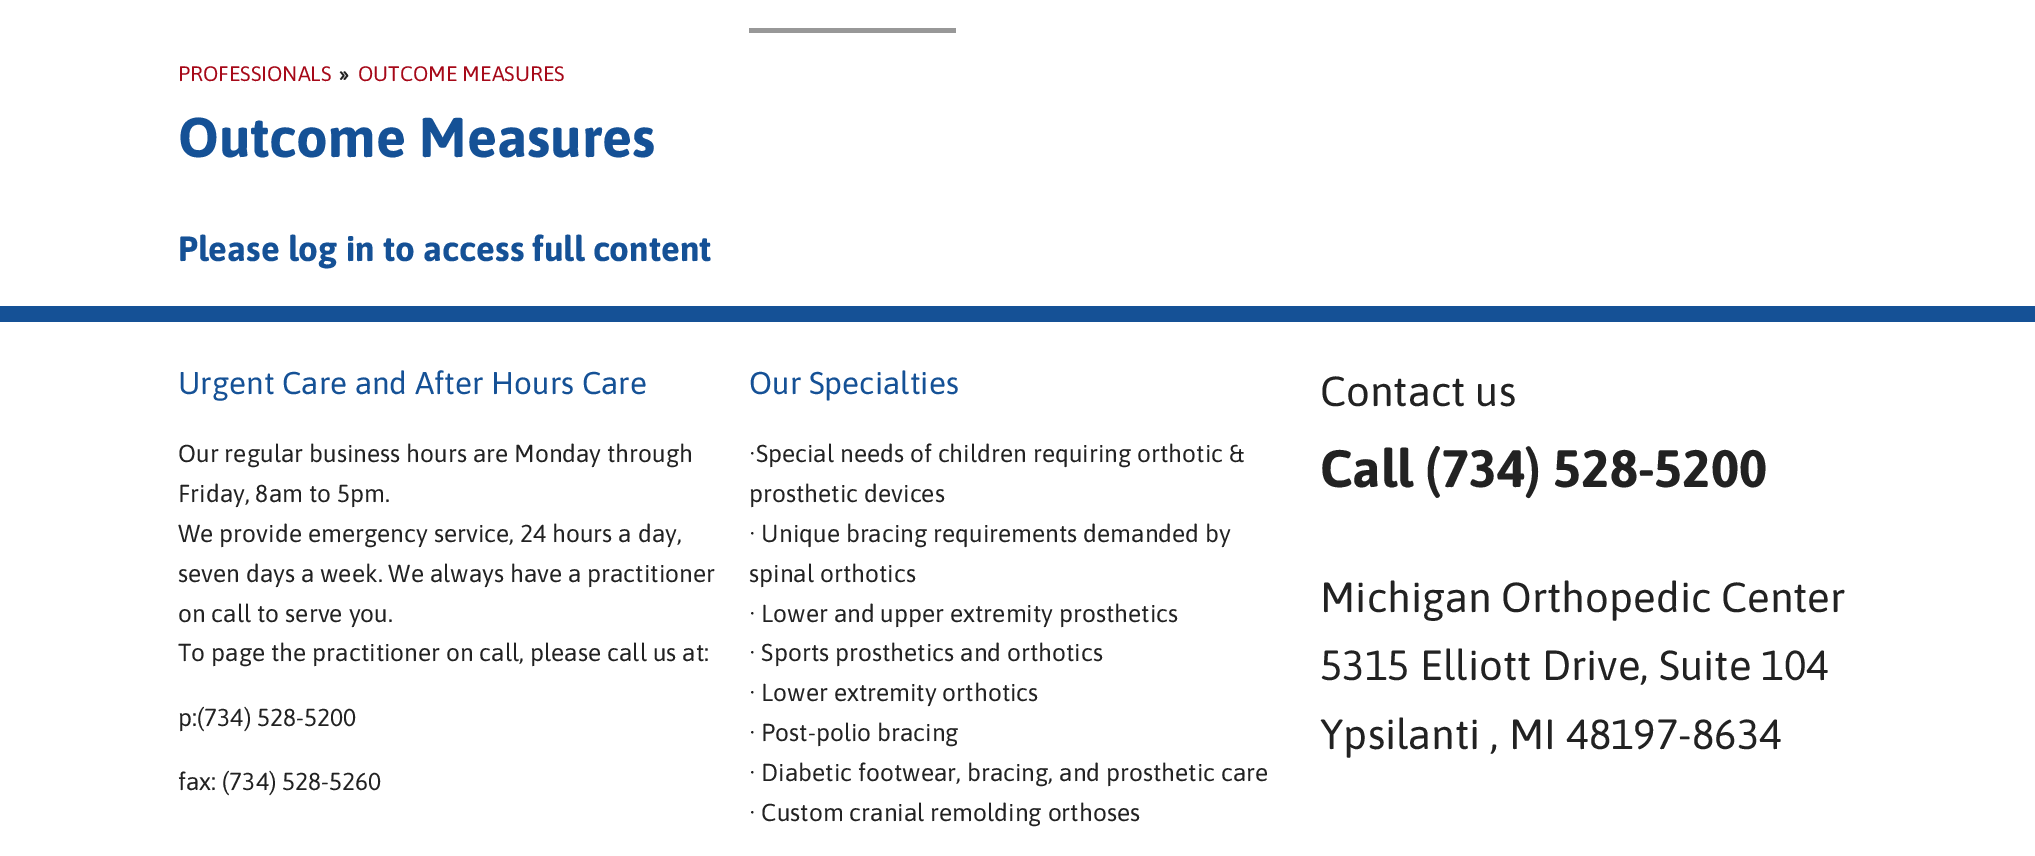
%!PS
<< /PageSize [2035 856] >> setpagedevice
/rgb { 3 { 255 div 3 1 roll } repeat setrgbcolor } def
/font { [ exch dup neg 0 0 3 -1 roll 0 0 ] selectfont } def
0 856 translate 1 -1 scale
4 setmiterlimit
255 255 255 rgb
0 0 2035 856 rectfill
152 152 152 rgb
749 28 207 5 rectfill
21 81 150 rgb
0 306 2035 16 rectfill
/Asap-Regular 21 font
166 8 24 rgb
178 81 moveto (PROFESSIONALS) show
/Asap-Bold 21 font
34 34 34 rgb
339 81 moveto (») show
/Asap-Regular 21 font
166 8 24 rgb
358 81 moveto (OUTCOME MEASURES) show
/Asap-Bold 56 font
21 81 150 rgb
178 157 moveto (Outcome Measures) show
/Asap-Bold 35 font
178 261 moveto (Please log in to access full content) show
/Asap-Regular 31.5 font
178 394 moveto (Urgent Care and After Hours Care) show
/Asap-Regular 24.5 font
34 34 34 rgb
[
  [(Our regular business hours are Monday through) 178 462]
  [(Friday, 8am to 5pm.) 178 502]
  [(We provide emergency service, 24 hours a day,) 178 542]
  [(seven days a week. We always have a practitioner) 178 582]
  [(on call to serve you.) 178 622]
  [(To page the practitioner on call, please call us at:) 178 661]
  [(p:\(734\) 528-5200) 178 726]
  [(fax: \(734\) 528-5260) 178 790]
] { aload pop moveto show } forall
/Asap-Regular 31.5 font
21 81 150 rgb
749 394 moveto (Our Specialties) show
/Asap-Regular 24.5 font
34 34 34 rgb
[
  [(·Special needs of children requiring orthotic &) 749 462]
  [(prosthetic devices) 749 502]
  [(· Unique bracing requirements demanded by) 749 542]
  [(spinal orthotics) 749 582]
  [(· Lower and upper extremity prosthetics) 749 622]
  [(· Sports prosthetics and orthotics) 749 661]
  [(· Lower extremity orthotics) 749 701]
  [(· Post-polio bracing) 749 741]
  [(· Diabetic footwear, bracing, and prosthetic care) 749 781]
  [(· Custom cranial remolding orthoses) 749 821]
] { aload pop moveto show } forall
/Asap-Regular 42 font
1320 406 moveto (Contact us) show
/Asap-Bold 52.5 font
1320 487 moveto (Call \(734\) 528-5200) show
/Asap-Regular 42 font
[
  [(Michigan Orthopedic Center) 1320 612]
  [(5315 Elliott Drive, Suite 104) 1320 680]
  [(Ypsilanti , MI 48197-8634) 1320 749]
] { aload pop moveto show } forall
showpage
